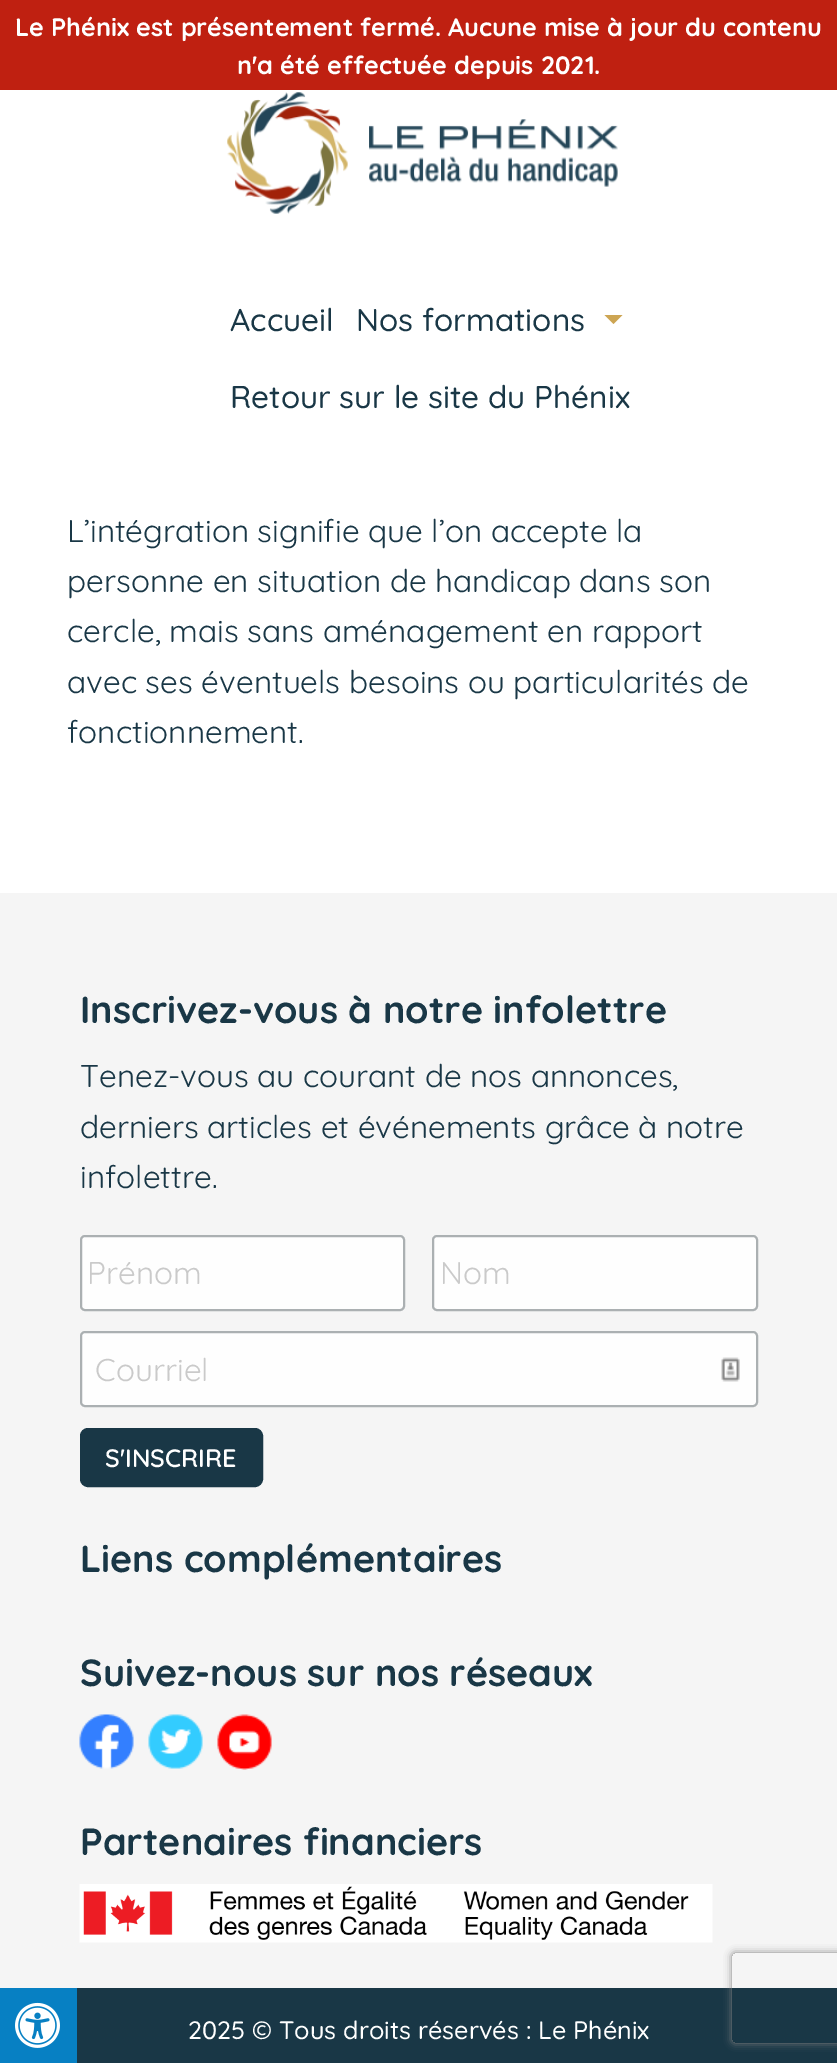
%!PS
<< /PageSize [837 2063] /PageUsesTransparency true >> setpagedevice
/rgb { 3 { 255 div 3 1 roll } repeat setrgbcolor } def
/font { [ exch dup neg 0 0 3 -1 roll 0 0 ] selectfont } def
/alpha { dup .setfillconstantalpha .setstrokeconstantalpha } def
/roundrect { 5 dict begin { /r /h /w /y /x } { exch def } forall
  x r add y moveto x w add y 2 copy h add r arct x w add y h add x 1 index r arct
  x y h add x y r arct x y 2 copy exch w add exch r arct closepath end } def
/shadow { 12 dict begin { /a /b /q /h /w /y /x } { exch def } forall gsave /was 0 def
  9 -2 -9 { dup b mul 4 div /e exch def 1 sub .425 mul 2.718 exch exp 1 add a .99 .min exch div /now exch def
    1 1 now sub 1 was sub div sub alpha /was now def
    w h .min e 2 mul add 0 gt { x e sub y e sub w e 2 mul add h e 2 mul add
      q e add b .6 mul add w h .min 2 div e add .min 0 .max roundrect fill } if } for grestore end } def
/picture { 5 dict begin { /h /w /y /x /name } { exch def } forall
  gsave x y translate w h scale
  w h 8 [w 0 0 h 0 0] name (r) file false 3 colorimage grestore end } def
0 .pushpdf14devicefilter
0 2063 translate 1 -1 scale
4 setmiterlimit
255 255 255 rgb
0 0 837 2063 rectfill
191 32 17 rgb
0 0 837 90 rectfill
(img/1.rgb) 227 92 391 122 picture
205 165 83 rgb
604.5 315 moveto 622.5 315 lineto 613.5 324 lineto closepath fill
7 128 195 rgb
0 1988 77 75 rectfill
(img/2.rgb) 15 2002 45 46 picture
245 245 245 rgb
0 893 837 1095 rectfill
254 254 254 rgb
81 1236 323 74 4 roundrect gsave fill grestore
171 176 178 rgb
2 setlinewidth
stroke
254 254 254 rgb
433 1236 324 74 4 roundrect gsave fill grestore
171 176 178 rgb
stroke
254 254 254 rgb
80 1331 678 76 5 roundrect fill
(img/3.rgb) 721 1357 19 25 picture
171 176 178 rgb
81 1332 676 74 4 roundrect stroke
25 55 70 rgb
81.5 1429.5 180 56 6.5 roundrect gsave fill grestore
3 setlinewidth
stroke
(img/4.rgb) 79 1714 55 55 picture
(img/5.rgb) 148 1714 55 55 picture
(img/6.rgb) 217 1714 55 56 picture
(img/7.rgb) 79 1884 634 59 picture
77 1988 760 75 rectfill
gsave
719 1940 moveto 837 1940 lineto 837 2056 lineto 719 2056 lineto closepath 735 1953 moveto 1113 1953 lineto 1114.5 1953 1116 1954.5 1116 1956 curveto 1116 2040 lineto 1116 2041.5 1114.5 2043 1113 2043 curveto 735 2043 lineto 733.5 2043 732 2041.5 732 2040 curveto 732 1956 lineto 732 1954.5 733.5 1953 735 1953 curveto closepath eoclip newpath
128 128 128 rgb
732 1953 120 90 3 4 1 shadow
grestore
/Quicksand-Bold 25.2 font
255 255 255 rgb
15 36 moveto (Le Phénix est présentement fermé. Aucune mise à jour du contenu) show
237 74 moveto (n'a été effectuée depuis 2021.) show
/Quicksand-Medium 31.5 font
25 55 70 rgb
[
  [(Accueil) 230 331]
  [(Nos formations) 356 331]
  [(Retour sur le site du Phénix) 230 408]
] { aload pop moveto show } forall
/Quicksand-Regular 31.5 font
[
  [(L’intégration signifie que l’on accepte la) 67 542]
  [(personne en situation de handicap dans son) 67 592]
  [(cercle, mais sans aménagement en rapport) 67 642]
  [(avec ses éventuels besoins ou particularités de) 67 693]
  [(fonctionnement.) 67 743]
] { aload pop moveto show } forall
/Quicksand-Bold 37.75 font
80 1023 moveto (Inscrivez-vous à notre infolettre) show
/Quicksand-Regular 31.5 font
[
  [(Tenez-vous au courant de nos annonces,) 80 1087]
  [(derniers articles et événements grâce à notre) 80 1138]
  [(infolettre.) 80 1188]
] { aload pop moveto show } forall
202 202 202 rgb
[
  [(Prénom) 87 1284]
  [(Nom) 440 1284]
  [(Courriel) 95 1381]
] { aload pop moveto show } forall
/Quicksand-SemiBold 25.2 font
255 255 255 rgb
105 1467 moveto (S'INSCRIRE) show
/Quicksand-Bold 37.75 font
25 55 70 rgb
[
  [(Liens complémentaires) 80 1572]
  [(Suivez-nous sur nos réseaux) 80 1686]
  [(Partenaires financiers) 80 1855]
] { aload pop moveto show } forall
/Quicksand-Medium 25.2 font
255 255 255 rgb
188 2039 moveto (2025 © Tous droits réservés : Le Phénix) show
.poppdf14devicefilter showpage
